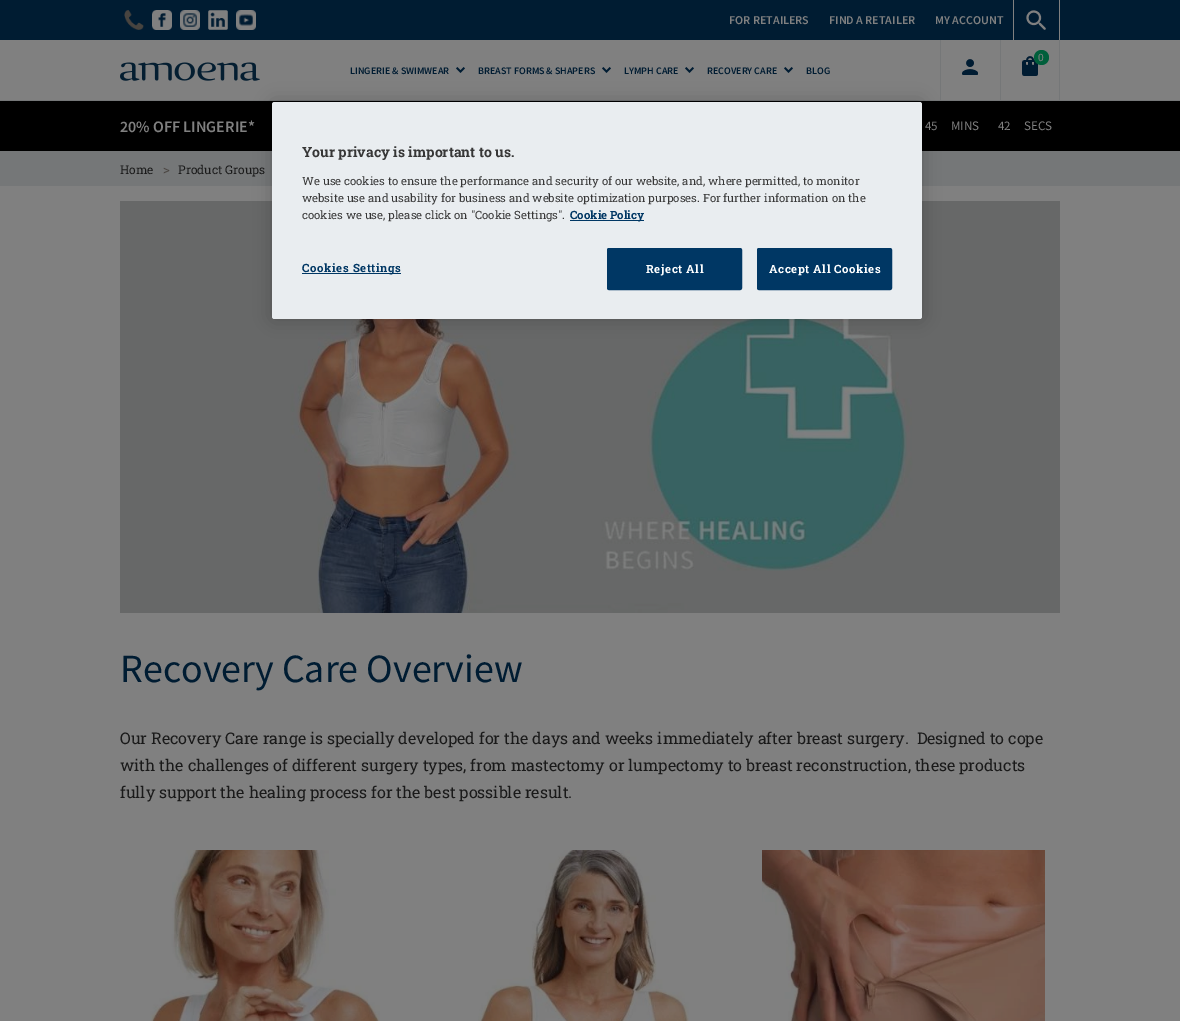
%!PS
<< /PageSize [1180 1021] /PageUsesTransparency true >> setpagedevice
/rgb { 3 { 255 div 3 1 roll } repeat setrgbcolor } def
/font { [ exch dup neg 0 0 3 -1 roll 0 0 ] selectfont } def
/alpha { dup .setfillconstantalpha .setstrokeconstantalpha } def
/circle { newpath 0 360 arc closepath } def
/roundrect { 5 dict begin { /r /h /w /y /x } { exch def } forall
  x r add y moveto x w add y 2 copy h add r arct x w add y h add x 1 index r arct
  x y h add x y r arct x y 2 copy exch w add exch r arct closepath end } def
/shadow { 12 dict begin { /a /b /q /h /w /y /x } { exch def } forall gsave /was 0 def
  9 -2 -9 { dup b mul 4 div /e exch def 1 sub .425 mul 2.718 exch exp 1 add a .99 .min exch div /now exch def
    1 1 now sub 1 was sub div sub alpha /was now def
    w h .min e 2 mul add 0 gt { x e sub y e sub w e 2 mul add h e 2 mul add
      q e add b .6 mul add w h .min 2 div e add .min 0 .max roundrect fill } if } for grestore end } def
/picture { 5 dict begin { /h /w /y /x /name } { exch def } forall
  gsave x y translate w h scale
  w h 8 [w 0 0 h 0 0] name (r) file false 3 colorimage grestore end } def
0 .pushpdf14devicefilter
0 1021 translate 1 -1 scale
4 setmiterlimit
128 128 128 rgb
0 0 1180 1021 rectfill
117 119 120 rgb
0 100 1180 1 rectfill
0 28 50 rgb
0 0 1180 40 rectfill
(img/1.rgb) 124 10 20 20 picture
(img/2.rgb) 152 10 20 20 picture
(img/3.rgb) 180 10 20 20 picture
(img/4.rgb) 208 10 20 20 picture
(img/5.rgb) 236 10 20 20 picture
128 128 128 rgb
1059 0 1 40 rectfill
1013 0 1 40 rectfill
(img/6.rgb) 1026 10 20 20 picture
117 119 120 rgb
940 40 1 60 rectfill
(img/7.rgb) 962 59 16 16 picture
1059 40 1 60 rectfill
1000 40 1 60 rectfill
(img/8.rgb) 1022 56 16 20 picture
0 95 59 rgb
1041.5 57.5 7.5 circle fill
(img/9.rgb) 120 62 140 19 picture
(img/10.rgb) 456 67 9 6 picture
(img/10.rgb) 602 67 9 6 picture
(img/10.rgb) 685 67 9 6 picture
(img/10.rgb) 784 67 9 6 picture
0 0 0 rgb
0 101 1180 50 rectfill
117 119 120 rgb
0 151 1180 35 rectfill
(img/11.rgb) 120 201 940 412 picture
(img/12.rgb) 150 850 230 171 picture
(img/13.rgb) 478 850 211 171 picture
(img/14.rgb) 762 850 283 171 picture
0 0 0 rgb
272 102 650 217 2.5 9 0.2 shadow
233 237 240 rgb
272 102 650 217 2.5 roundrect fill
0 55 100 rgb
570 220 74 1 rectfill
302 273 99 1 rectfill
607.5 248.5 134 41 1.5 roundrect gsave fill grestore
stroke
757.5 248.5 134 41 1.5 roundrect gsave fill grestore
stroke
/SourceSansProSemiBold-SemiBold 12 font
128 128 128 rgb
[
  [(FOR RETAILERS) 729 24]
  [(FIND A RETAILER) 829 24]
  [(MY ACCOUNT) 935 24]
] { aload pop moveto show } forall
/RobotoSlab-Regular 10 font
1038 61 moveto (0) show
/SourceSansProSemiBold-SemiBold 10 font
0 28 50 rgb
[
  [(LINGERIE & SWIMWEAR) 350 74]
  [(BREAST FORMS & SHAPERS) 478 74]
  [(LYMPH CARE) 624 74]
  [(RECOVERY CARE) 707 74]
  [(BLOG) 806 74]
] { aload pop moveto show } forall
/SourceSansProSemiBold-SemiBold 16 font
128 128 128 rgb
120 132 moveto (20% OFF LINGERIE*) show
/SourceSansPro-Regular 13 font
[
  [(45) 925 130]
  [(MINS) 951 130]
  [(42) 998 130]
  [(SECS) 1024 130]
] { aload pop moveto show } forall
/RobotoSlab-Regular 12 font
26 26 26 rgb
120 174 moveto (Home) show
/RobotoSlab-Regular 13 font
75 70 66 rgb
163 174 moveto (>) show
/RobotoSlab-Regular 12 font
26 26 26 rgb
178 174 moveto (Product Groups) show
/SourceSansPro-Regular 40 font
0 28 50 rgb
120 682 moveto (Recovery Care Overview) show
/RobotoSlab-Regular 16 font
26 26 26 rgb
[
  [(Our Recovery Care range is specially developed for the days and weeks immediately after breast surgery.  Designed to cope) 120 744]
  [(with the challenges of different surgery types, from mastectomy or lumpectomy to breast reconstruction, these products) 120 771]
  [(fully support the healing process for the best possible result.) 120 798]
] { aload pop moveto show } forall
/RobotoSlab-Bold 14 font
55 55 55 rgb
302 157 moveto (Your privacy is important to us.) show
/RobotoSlab-Regular 11.4 font
[
  [(We use cookies to ensure the performance and security of our website, and, where permitted, to monitor) 302 185]
  [(website use and usability for business and website optimization purposes. For further information on the) 302 202]
  [(cookies we use, please click on "Cookie Settings".) 302 219]
] { aload pop moveto show } forall
/RobotoSlab-Bold 11.4 font
0 55 100 rgb
570 219 moveto (Cookie Policy) show
302 272 moveto 0.6 0 (Cookies Settings) ashow
255 255 255 rgb
646 273 moveto 0.6 0 (Reject All) ashow
769 273 moveto 0.6 0 (Accept All Cookies) ashow
.poppdf14devicefilter showpage
